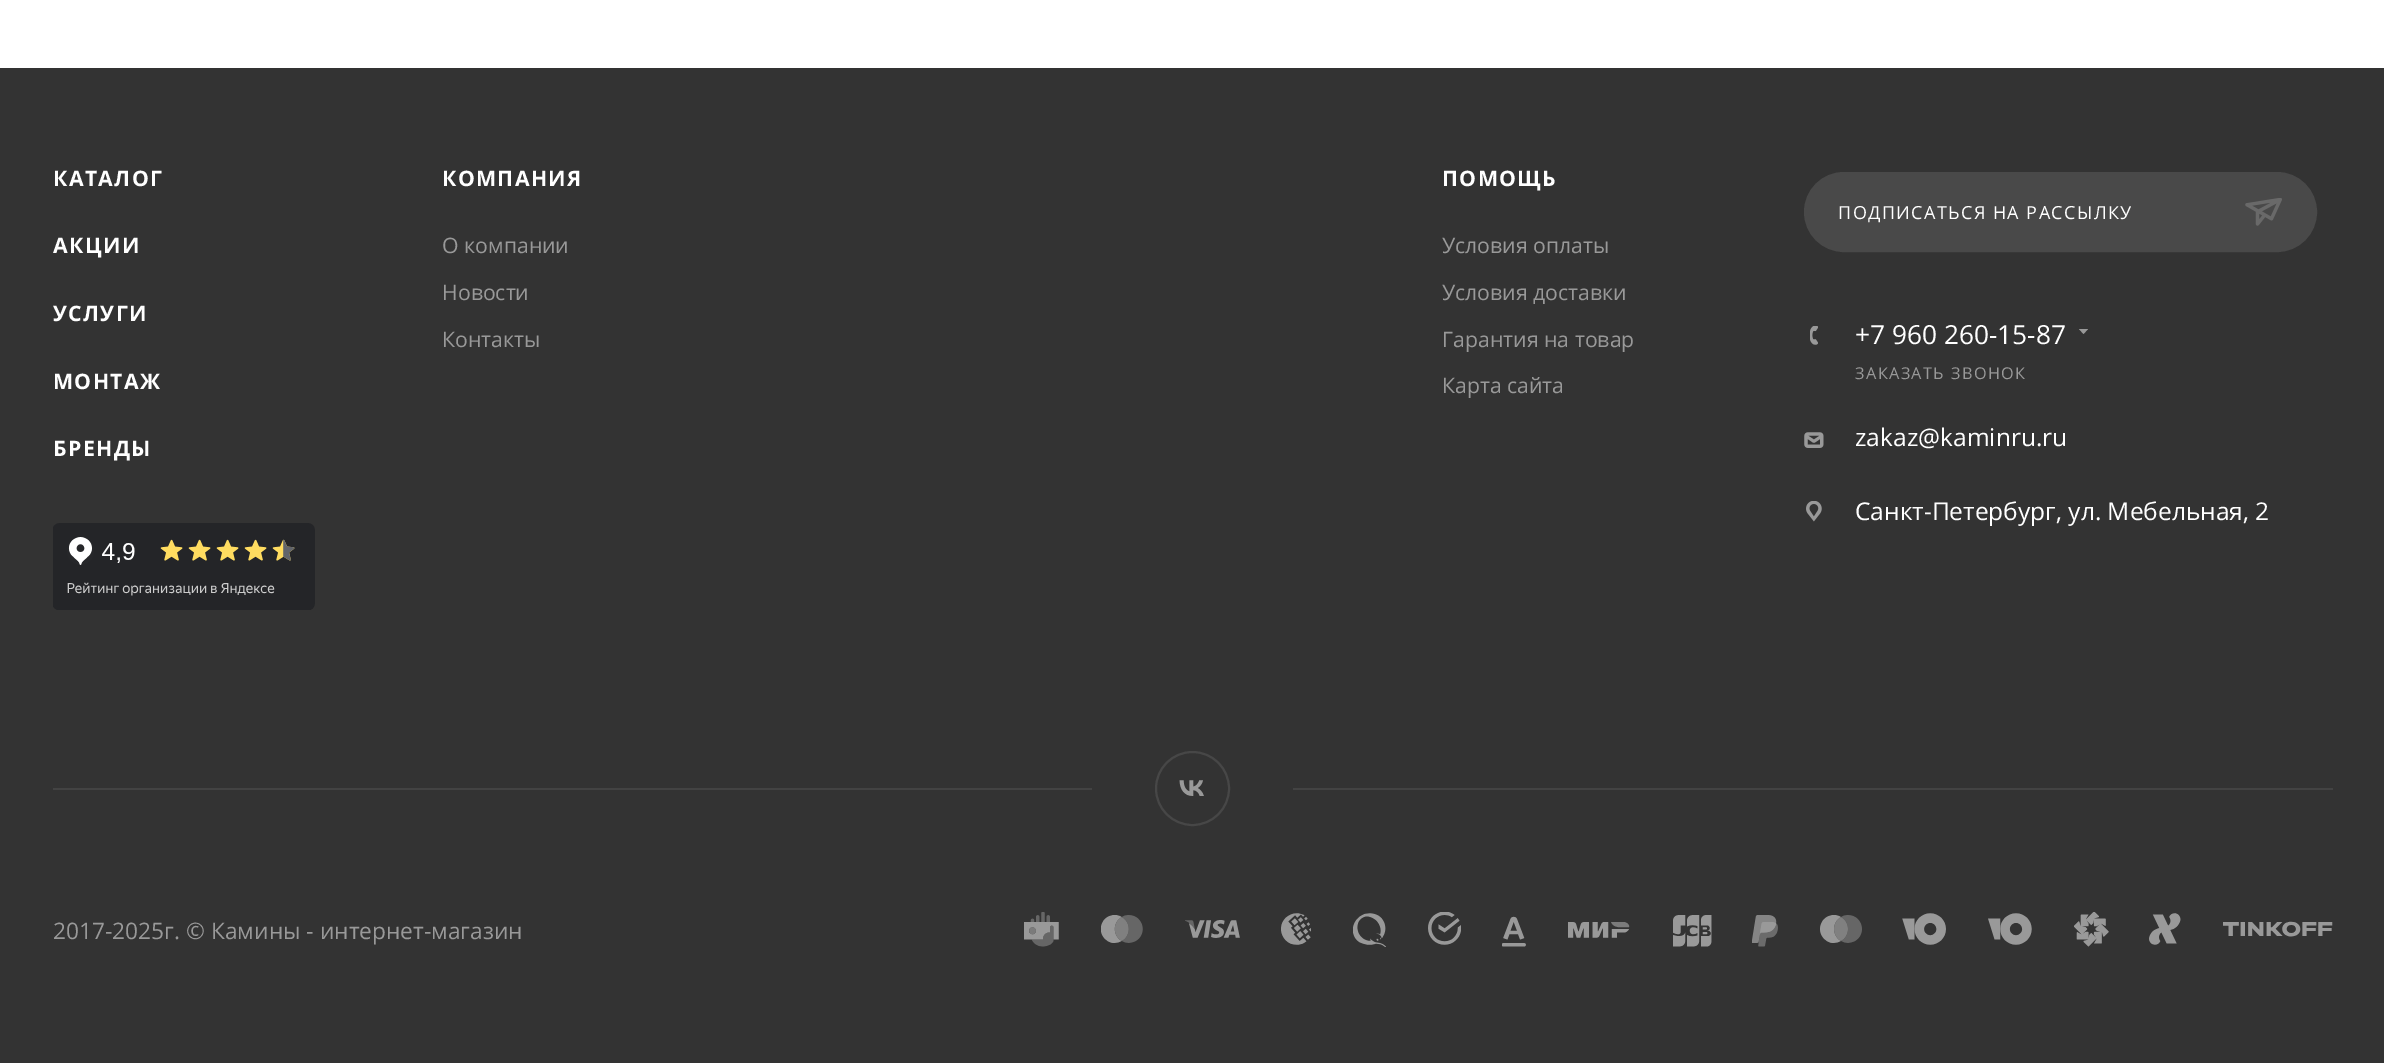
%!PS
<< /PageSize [2384 1063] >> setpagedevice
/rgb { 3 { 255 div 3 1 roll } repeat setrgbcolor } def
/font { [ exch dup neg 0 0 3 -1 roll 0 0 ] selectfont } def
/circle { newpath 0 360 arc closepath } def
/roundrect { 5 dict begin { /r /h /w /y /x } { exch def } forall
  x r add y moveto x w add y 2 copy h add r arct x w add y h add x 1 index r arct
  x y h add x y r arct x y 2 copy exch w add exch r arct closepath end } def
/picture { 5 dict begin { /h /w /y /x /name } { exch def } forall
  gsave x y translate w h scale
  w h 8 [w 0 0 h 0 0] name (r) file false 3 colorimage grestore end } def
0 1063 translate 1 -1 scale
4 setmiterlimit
255 255 255 rgb
0 0 2384 1063 rectfill
51 51 51 rgb
0 68 2384 995 rectfill
(img/1.rgb) 53 523 262 87 picture
73 73 73 rgb
1805 173 511 78 39 roundrect gsave fill grestore
2 setlinewidth
stroke
(img/2.rgb) 2245 198 37 28 picture
(img/3.rgb) 1810 326 8 19 picture
153 153 153 rgb
2079 329 moveto 2088 329 lineto 2083.5 334 lineto closepath eofill
(img/4.rgb) 1804 432 20 16 picture
(img/5.rgb) 1806 501 16 21 picture
67 67 67 rgb
53 788 2280 2 rectfill
51 51 51 rgb
1092 788 201 2 rectfill
(img/6.rgb) 1179 780 25 16 picture
71 71 71 rgb
1192.5 788.5 36.5 circle stroke
(img/7.rgb) 1024 912 35 35 picture
(img/8.rgb) 1101 915 42 28 picture
(img/9.rgb) 1185 920 55 18 picture
(img/10.rgb) 1281 913 30 32 picture
(img/11.rgb) 1353 913 33 34 picture
(img/12.rgb) 1428 912 33 33 picture
(img/13.rgb) 1502 916 24 31 picture
(img/14.rgb) 1568 922 62 16 picture
(img/15.rgb) 1673 915 39 32 picture
(img/16.rgb) 1752 915 26 32 picture
(img/17.rgb) 1820 915 42 28 picture
(img/18.rgb) 1902 913 44 32 picture
(img/19.rgb) 1988 913 44 32 picture
(img/20.rgb) 2074 912 35 35 picture
(img/21.rgb) 2149 913 32 32 picture
(img/22.rgb) 2223 921 110 16 picture
/OpenSans-Bold 21.25 font
255 255 255 rgb
53 186 moveto 1.4 0 (КАТАЛОГ) ashow
53 253 moveto 1.4 0 (АКЦИИ) ashow
53 321 moveto 1.4 0 (УСЛУГИ) ashow
53 389 moveto 1.4 0 (МОНТАЖ) ashow
53 456 moveto 1.4 0 (БРЕНДЫ) ashow
442 186 moveto 1.4 0 (КОМПАНИЯ) ashow
/OpenSans-Regular 21.25 font
153 153 153 rgb
[
  [(О компании) 442 253]
  [(Новости) 442 300]
  [(Контакты) 442 347]
] { aload pop moveto show } forall
/OpenSans-Bold 21.25 font
255 255 255 rgb
1442 186 moveto 1.4 0 (ПОМОЩЬ) ashow
/OpenSans-Regular 21.25 font
153 153 153 rgb
[
  [(Условия оплаты) 1442 253]
  [(Условия доставки) 1442 300]
  [(Гарантия на товар) 1442 347]
  [(Карта сайта) 1442 393]
] { aload pop moveto show } forall
/OpenSans-Regular 18 font
255 255 255 rgb
1838 219 moveto 1.4 0 (ПОДПИСАТЬСЯ НА РАССЫЛКУ) ashow
/OpenSans-Regular 26.25 font
1855 344 moveto (+7 960 260-15-87) show
/OpenSans-Regular 16.25 font
153 153 153 rgb
1855 379 moveto 1.4 0 (ЗАКАЗАТЬ ЗВОНОК) ashow
/OpenSans-Regular 24.5 font
255 255 255 rgb
1855 446 moveto (zakaz@kaminru.ru) show
1855 520 moveto (Санкт-Петербург, ул. Мебельная, 2) show
/OpenSans-Regular 22.75 font
153 153 153 rgb
53 939 moveto (2017-2025г. © Камины - интернет-магазин) show
showpage
